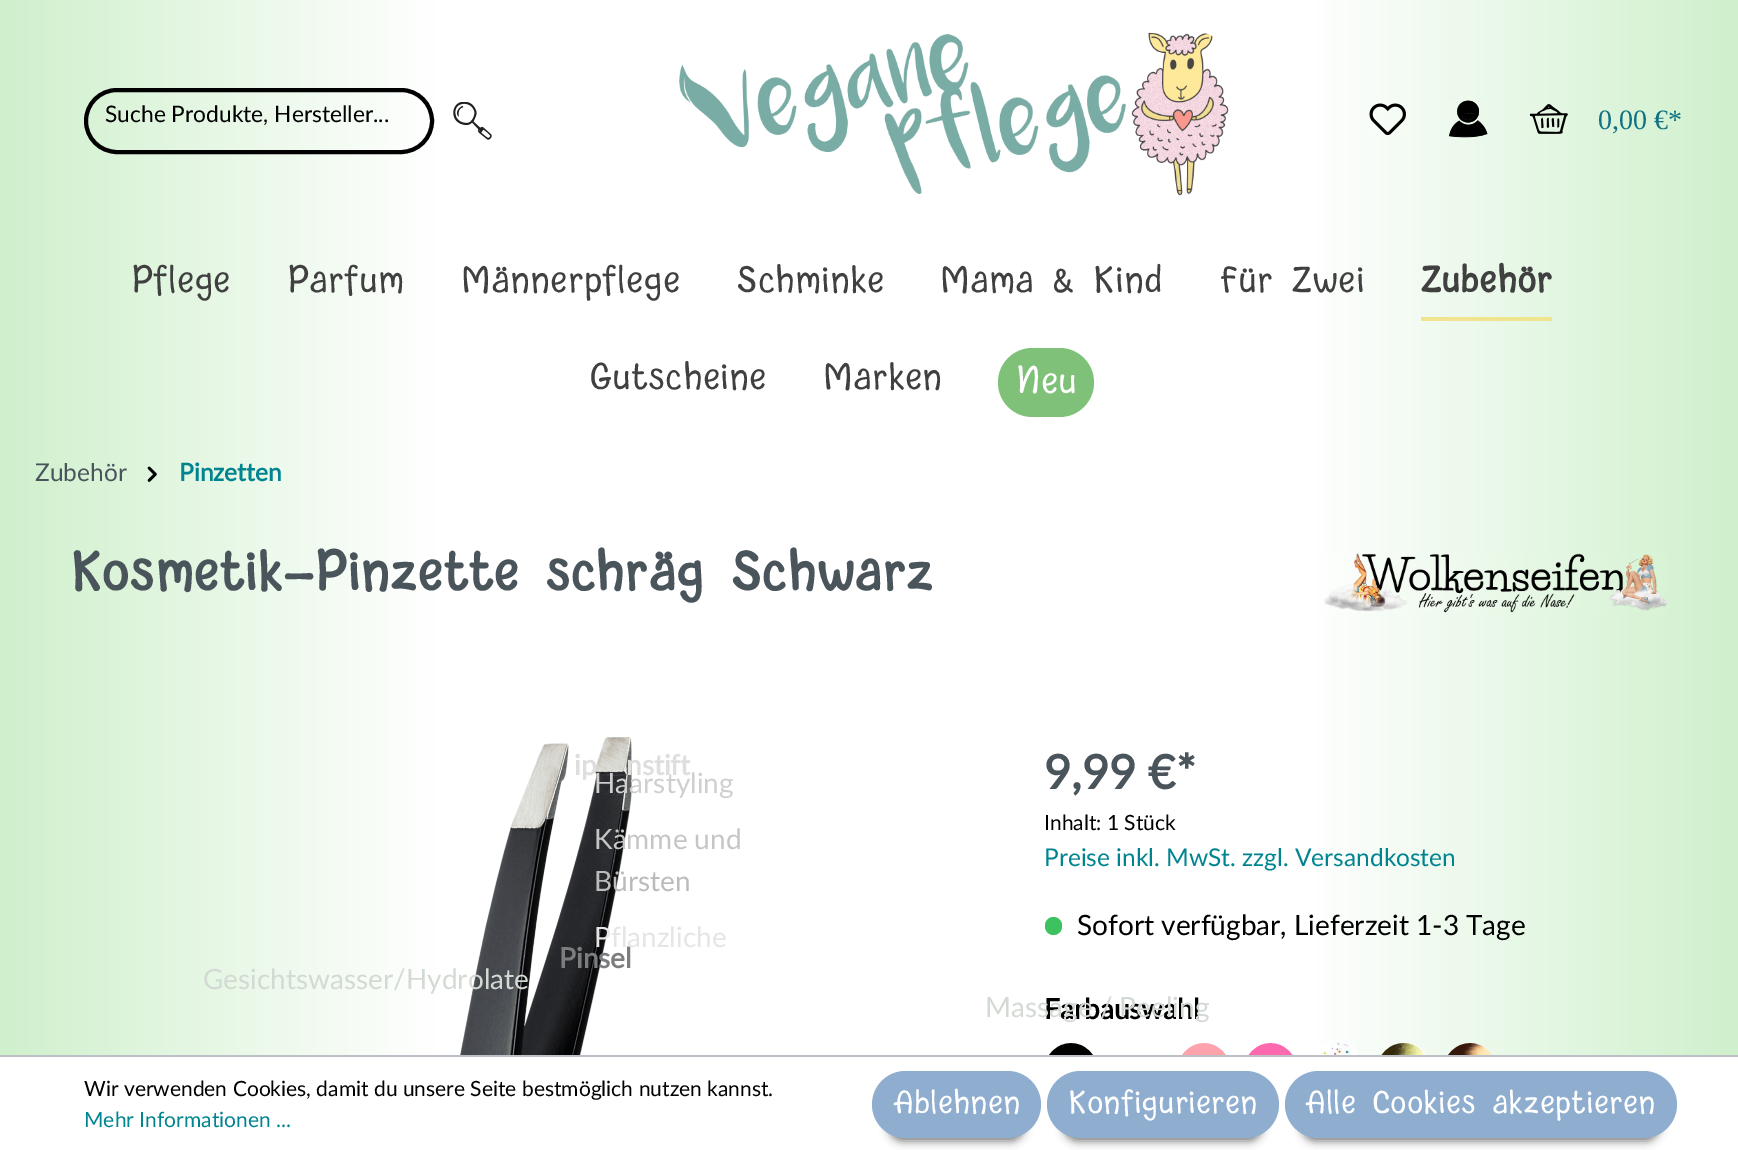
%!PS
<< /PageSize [1738 1150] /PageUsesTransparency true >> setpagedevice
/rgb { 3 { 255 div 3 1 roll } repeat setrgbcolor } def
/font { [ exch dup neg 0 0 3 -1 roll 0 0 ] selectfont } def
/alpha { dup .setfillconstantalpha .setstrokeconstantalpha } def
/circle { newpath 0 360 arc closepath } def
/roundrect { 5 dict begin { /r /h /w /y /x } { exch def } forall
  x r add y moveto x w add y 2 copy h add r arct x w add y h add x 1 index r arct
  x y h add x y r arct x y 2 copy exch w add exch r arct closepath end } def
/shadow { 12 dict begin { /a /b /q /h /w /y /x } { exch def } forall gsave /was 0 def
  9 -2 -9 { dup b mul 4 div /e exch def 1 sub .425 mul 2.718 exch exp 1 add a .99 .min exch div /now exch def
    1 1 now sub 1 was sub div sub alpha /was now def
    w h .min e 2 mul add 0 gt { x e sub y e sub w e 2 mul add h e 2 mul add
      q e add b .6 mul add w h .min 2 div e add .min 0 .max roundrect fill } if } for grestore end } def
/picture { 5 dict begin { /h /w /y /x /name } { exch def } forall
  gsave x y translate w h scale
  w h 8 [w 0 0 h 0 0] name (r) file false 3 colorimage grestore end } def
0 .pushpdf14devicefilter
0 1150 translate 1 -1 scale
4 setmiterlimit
255 255 255 rgb
0 0 1738 1150 rectfill
gsave 0 0 moveto 1738 0 lineto 1738 1055 lineto 0 1055 lineto closepath clip newpath
<< /ShadingType 2 /ColorSpace /DeviceRGB /Coords [0 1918 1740 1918] /Extend [true true] /Function << /FunctionType 3 /Domain [0 1] /Functions [<< /FunctionType 2 /Domain [0 1] /C0 [0.812 0.941 0.8] /C1 [1 1 1] /N 1 >> << /FunctionType 2 /Domain [0 1] /C0 [1 1 1] /C1 [1 1 1] /N 1 >> << /FunctionType 2 /Domain [0 1] /C0 [1 1 1] /C1 [0.812 0.941 0.8] /N 1 >>] /Bounds [0.25 0.75] /Encode [0 1 0 1 0 1] >> >> shfill grestore
0 0 0 rgb
4 setlinewidth
86 90 346 62 31 roundrect stroke
(img/1.rgb) 453 102 39 38 picture
(img/2.rgb) 679 32 550 164 picture
(img/3.rgb) 1369 103 37 33 picture
(img/4.rgb) 1449 100 39 38 picture
(img/5.rgb) 1530 104 38 30 picture
240 229 142 rgb
1421 317 131 4 rectfill
127 193 121 rgb
998 348 96 69 34.5 roundrect fill
(img/6.rgb) 147 466 10 16 picture
(img/7.rgb) 1323 553 345 60 picture
(img/8.rgb) 460 737 172 318 picture
60 194 97 rgb
1045 917 17 18 8.5 roundrect fill
(img/9.rgb) 1049 1043 44 12 picture
(img/10.rgb) 1182 1043 44 12 picture
(img/11.rgb) 1248 1043 45 12 picture
255 255 255 rgb
1342 1048 moveto 1348 1048 1353 1050 1358 1053 curveto 1348 1041 1330 1040 1319 1051 curveto 1307 1062 1309 1082 1322 1091 curveto 1309 1075 1319 1048 1342 1048 curveto closepath fill
(img/12.rgb) 1315 1043 44 12 picture
1403.5 1069.5 26.5 circle fill
1381 1083 moveto 1384 1089 1390 1093 1397 1095 curveto 1426 1103 1443 1064 1418 1047 curveto 1438 1072 1405 1105 1381 1083 curveto closepath fill
1409 1048 moveto 1415 1048 1420 1050 1425 1053 curveto 1415 1041 1396 1040 1385 1051 curveto 1373 1062 1375 1082 1388 1091 curveto 1374 1074 1386 1048 1409 1048 curveto closepath fill
(img/13.rgb) 1381 1043 45 12 picture
1444 1043 52 53 26 roundrect fill
(img/14.rgb) 1448 1043 44 12 picture
188 193 199 rgb
0 1055 1738 2 rectfill
119 119 119 rgb
889 1110 135 31 15.5 4.5 1 shadow
143 174 207 rgb
872 1071 169 67 33.5 roundrect fill
119 119 119 rgb
1064 1110 198 31 15.5 4.5 1 shadow
143 174 207 rgb
1047 1071 232 67 33.5 roundrect fill
119 119 119 rgb
1302 1110 357 31 15.5 4.5 1 shadow
143 174 207 rgb
1285 1071 392 67 33.5 roundrect fill
/Lato-Regular 22.75 font
0 0 0 rgb
105 122 moveto (Suche Produkte, Hersteller...) show
/LiberationSerif-Regular 28 font
16 114 130 rgb
1598 129 moveto (0,00 €*) show
/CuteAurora-Regular 40.25 font
64 64 64 rgb
[
  [(Pflege) 131 292]
  [(Parfum) 287 292]
  [(Männerpflege) 461 292]
  [(Schminke) 736 292]
  [(Mama & Kind) 940 292]
  [(Für Zwei) 1219 292]
] { aload pop moveto show } forall
/CuteAurora-Bold 40.25 font
1420 292 moveto (Zubehör) show
/CuteAurora-Regular 40.25 font
589 389 moveto (Gutscheine) show
823 389 moveto (Marken) show
255 255 255 rgb
1016 393 moveto (Neu) show
/Lato-Bold 28 font
222 222 221 rgb
574 775 moveto (ip) show
626 775 moveto (nstift) show
124 125 126 rgb
559 968 moveto (Pinsel) show
/Lato-Regular 28 font
207 207 208 rgb
594 793 moveto (Haarstyling) show
197 197 198 rgb
594 849 moveto (Kämme und) show
187 187 188 rgb
594 891 moveto (Bürsten) show
229 229 229 rgb
594 947 moveto (Pflanzliche) show
211 218 212 rgb
203 989 moveto (Gesichtswasser/Hydrolate) show
/Lato-Regular 24.5 font
74 84 91 rgb
35 481 moveto (Zubehör) show
/Lato-Bold 24.5 font
0 132 144 rgb
179 481 moveto (Pinzetten) show
/CuteAurora-Bold 58.75 font
74 84 91 rgb
70 590 moveto (Kosmetik-Pinzette schräg Schwarz) show
/Lato-Bold 47 font
1044 789 moveto (9,99 €*) show
/Lato-Regular 21 font
0 0 0 rgb
1044 830 moveto (Inhalt: 1 Stück) show
/Lato-Regular 24.5 font
0 132 144 rgb
1044 866 moveto (Preise inkl. MwSt. zzgl. Versandkosten) show
/Lato-Regular 28 font
0 0 0 rgb
1077 935 moveto (Sofort verfügbar, Lieferzeit 1-3 Tage) show
/Lato-Bold 28 font
1044 1019 moveto (Farbauswahl) show
/Lato-Regular 28 font
211 218 212 rgb
985 1017 moveto (Massage / Peeling) show
/Lato-Regular 21 font
0 0 0 rgb
84 1096 moveto (Wir verwenden Cookies, damit du unsere Seite bestmöglich nutzen kannst.) show
0 132 144 rgb
84 1127 moveto (Mehr Informationen ...) show
/CuteAurora-Regular 35 font
255 255 255 rgb
[
  [(Ablehnen) 893 1113]
  [(Konfigurieren) 1068 1113]
  [(Alle Cookies akzeptieren) 1305 1113]
] { aload pop moveto show } forall
.poppdf14devicefilter showpage
